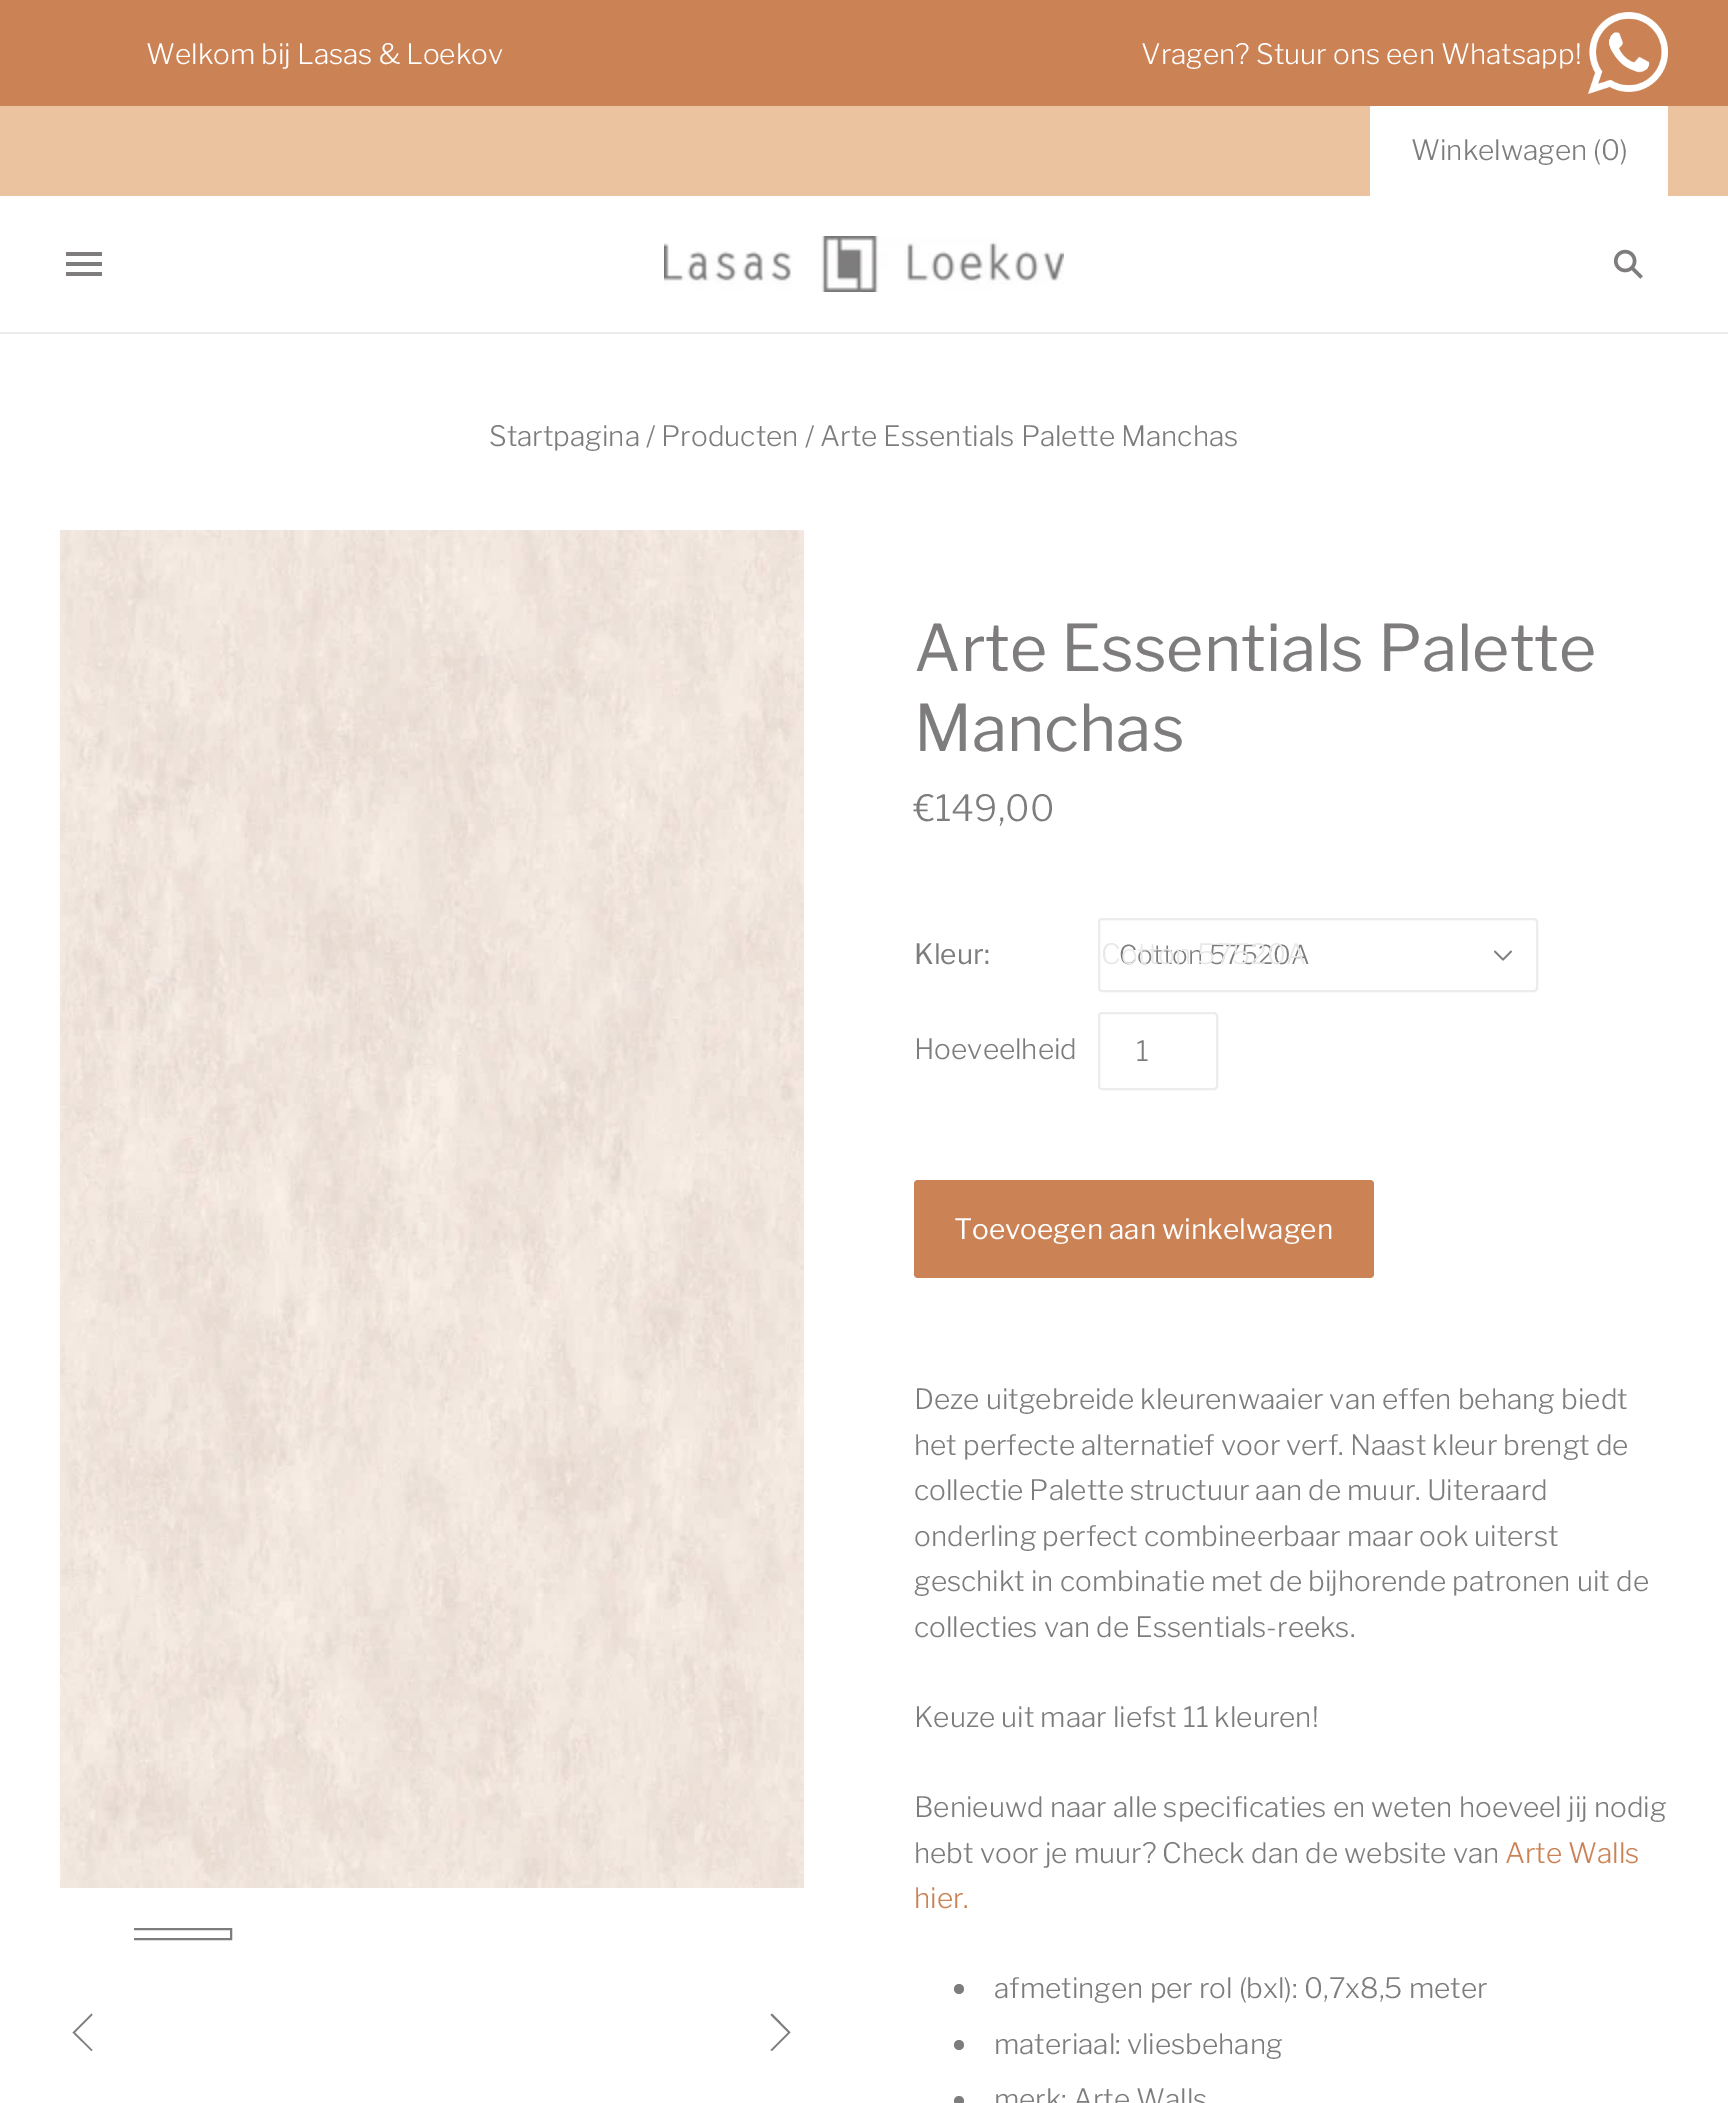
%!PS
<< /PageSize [1728 2103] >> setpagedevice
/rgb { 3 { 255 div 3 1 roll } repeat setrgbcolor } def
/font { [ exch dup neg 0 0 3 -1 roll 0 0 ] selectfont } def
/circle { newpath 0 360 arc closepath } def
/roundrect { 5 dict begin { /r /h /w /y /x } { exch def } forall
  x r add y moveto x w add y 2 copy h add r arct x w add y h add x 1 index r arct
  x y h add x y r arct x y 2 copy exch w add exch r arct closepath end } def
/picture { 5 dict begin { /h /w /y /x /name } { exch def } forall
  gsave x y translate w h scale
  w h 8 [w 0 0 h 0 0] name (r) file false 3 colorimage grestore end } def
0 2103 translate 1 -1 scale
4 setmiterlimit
255 255 255 rgb
0 0 1728 2103 rectfill
203 130 85 rgb
0 0 1728 106 rectfill
(img/1.rgb) 1588 12 80 82 picture
[
  [0 332 1728 2 237 236 234]
  [0 106 1728 90 235 195 159]
  [1370 106 298 90 255 255 255]
] { aload pop rgb rectfill } forall
126 124 124 rgb
66 252 moveto 102 252 lineto 102 256 lineto 66 256 lineto closepath 66 262 moveto 102 262 lineto 102 266 lineto 66 266 lineto closepath 66 272 moveto 102 272 lineto 102 276 lineto 66 276 lineto closepath eofill
(img/2.rgb) 664 236 400 56 picture
(img/3.rgb) 1613 249 30 30 picture
(img/4.rgb) 60 530 744 1358 picture
gsave
134 1928 596 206 rectclip
2 setlinewidth
115 1929 116 10 rectstroke
grestore
73 2032 moveto 72.5 2032.5 lineto 91.5 2051 lineto 92.5 2050 lineto 74.5 2032 lineto 74.5 2033 lineto 92.5 2015 lineto 91.5 2013.5 lineto closepath fill
790 2032 moveto 790.5 2032.5 lineto 772 2051 lineto 770.5 2050 lineto 788.5 2032 lineto 788.5 2033 lineto 770.5 2015 lineto 772 2013.5 lineto closepath fill
237 236 234 rgb
2 setlinewidth
1099 919 438 72 3 roundrect stroke
(img/5.rgb) 1494 950 18 11 picture
1099 1013 118 76 3 roundrect stroke
203 130 85 rgb
914 1180 460 98 4 roundrect fill
126 124 124 rgb
959 1989 5 circle fill
959 2045 5 circle fill
959 2101 5 circle fill
/LibreFranklin-Light 28 font
255 255 255 rgb
146 64 moveto (Welkom bij Lasas & Loekov) show
1141 64 moveto (Vragen? Stuur ons een Whatsapp!) show
126 124 124 rgb
1411 160 moveto (Winkelwagen \(0\)) show
489 446 moveto (Startpagina / Producten / Arte Essentials Palette Manchas) show
/LibreFranklin-Regular 64 font
914 671 moveto (Arte Essentials Palette) show
914 751 moveto (Manchas) show
/LibreFranklin-Light 36 font
914 821 moveto (€149,00) show
/LibreFranklin-Regular 28 font
914 964 moveto (Kleur:) show
/LibreFranklin-Light 26 font
1119 964 moveto (Cotton 57520A) show
/LibreFranklin-Light 28 font
232 232 232 rgb
1101 964 moveto (Cotton 57520A) show
126 124 124 rgb
914 1059 moveto (Hoeveelheid) show
1136 1061 moveto (1) show
/LibreFranklin-Regular 28 font
255 255 255 rgb
954 1239 moveto (Toevoegen aan winkelwagen) show
/LibreFranklin-Light 28 font
126 124 124 rgb
[
  [(Deze uitgebreide kleurenwaaier van effen behang biedt) 914 1409]
  [(het perfecte alternatief voor verf. Naast kleur brengt de) 914 1455]
  [(collectie Palette structuur aan de muur. Uiteraard) 914 1500]
  [(onderling perfect combineerbaar maar ook uiterst) 914 1546]
  [(geschikt in combinatie met de bijhorende patronen uit de) 914 1591]
  [(collecties van de Essentials-reeks.) 914 1637]
  [(Keuze uit maar liefst 11 kleuren!) 914 1727]
  [(Benieuwd naar alle specificaties en weten hoeveel jij nodig) 914 1817]
  [(hebt voor je muur? Check dan de website van) 914 1863]
] { aload pop moveto show } forall
203 130 85 rgb
1505 1863 moveto (Arte Walls) show
914 1908 moveto (hier.) show
126 124 124 rgb
[
  [(afmetingen per rol \(bxl\): 0,7x8,5 meter) 994 1998]
  [(materiaal: vliesbehang) 994 2054]
  [(merk: Arte Walls) 994 2109]
] { aload pop moveto show } forall
showpage
